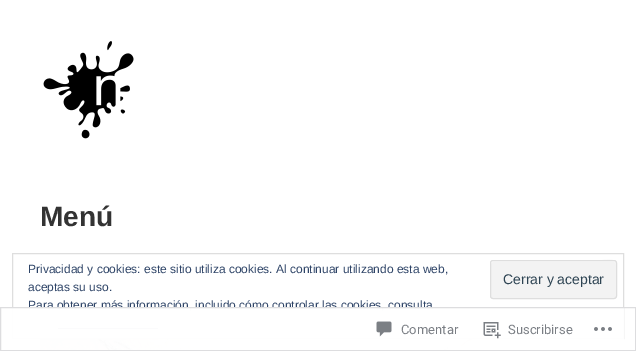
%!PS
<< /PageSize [636 351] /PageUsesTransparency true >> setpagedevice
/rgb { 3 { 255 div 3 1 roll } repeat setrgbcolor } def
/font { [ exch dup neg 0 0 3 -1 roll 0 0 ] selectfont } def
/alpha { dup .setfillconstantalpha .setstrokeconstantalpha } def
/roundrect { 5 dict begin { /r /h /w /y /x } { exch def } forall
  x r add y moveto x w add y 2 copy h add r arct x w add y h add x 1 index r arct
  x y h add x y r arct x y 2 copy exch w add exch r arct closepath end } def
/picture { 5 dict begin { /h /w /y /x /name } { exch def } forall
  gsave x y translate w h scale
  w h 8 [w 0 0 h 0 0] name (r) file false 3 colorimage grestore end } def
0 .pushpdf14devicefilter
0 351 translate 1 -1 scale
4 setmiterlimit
255 255 255 rgb
0 0 636 351 rectfill
(img/1.rgb) 43 41 91 98 picture
(img/2.rgb) 40 339 556 12 picture
222 222 222 rgb
12.5 253.5 611 85 rectstroke
243 243 243 rgb
490 260 127 39 3 roundrect fill
249 249 249 rgb
493 262 moveto 614 262 lineto 616 263 lineto 616 264 lineto 616 256 600 261 594 261 curveto 492 261 lineto 491 262 491 263 491 264 curveto 491 263 492 262 493 262 curveto closepath fill
222 222 222 rgb
490.5 260.5 126 38 2.5 roundrect stroke
46 68 103 rgb
58 328 100 1 rectfill
/LiberationSans-Bold 28 font
51 51 51 rgb
40 226 moveto (Menú) show
/LiberationSans-Regular 12 font
46 68 103 rgb
28 273 moveto (Privacidad y cookies: este sitio utiliza cookies. Al continuar utilizando esta web,) show
/LiberationSans-Regular 14 font
46 68 83 rgb
503 284 moveto (Cerrar y aceptar) show
/LiberationSans-Regular 12 font
46 68 103 rgb
28 291 moveto (aceptas su uso.) show
28 309 moveto (Para obtener más información, incluido cómo controlar las cookies, consulta) show
0.98 alpha
255 255 255 rgb
12 307 612 44 rectfill
220 220 222 rgb
0.5 307.5 635 43 rectstroke
1 alpha
(img/3.rgb) 376 321 16 16 picture
/Roboto-Regular 13 font
123 127 133 rgb
401 334 moveto (Comentar) show
(img/4.rgb) 483 322 18 17 picture
508 334 moveto (Suscribirse) show
(img/5.rgb) 594 327 18 4 picture
.poppdf14devicefilter showpage
